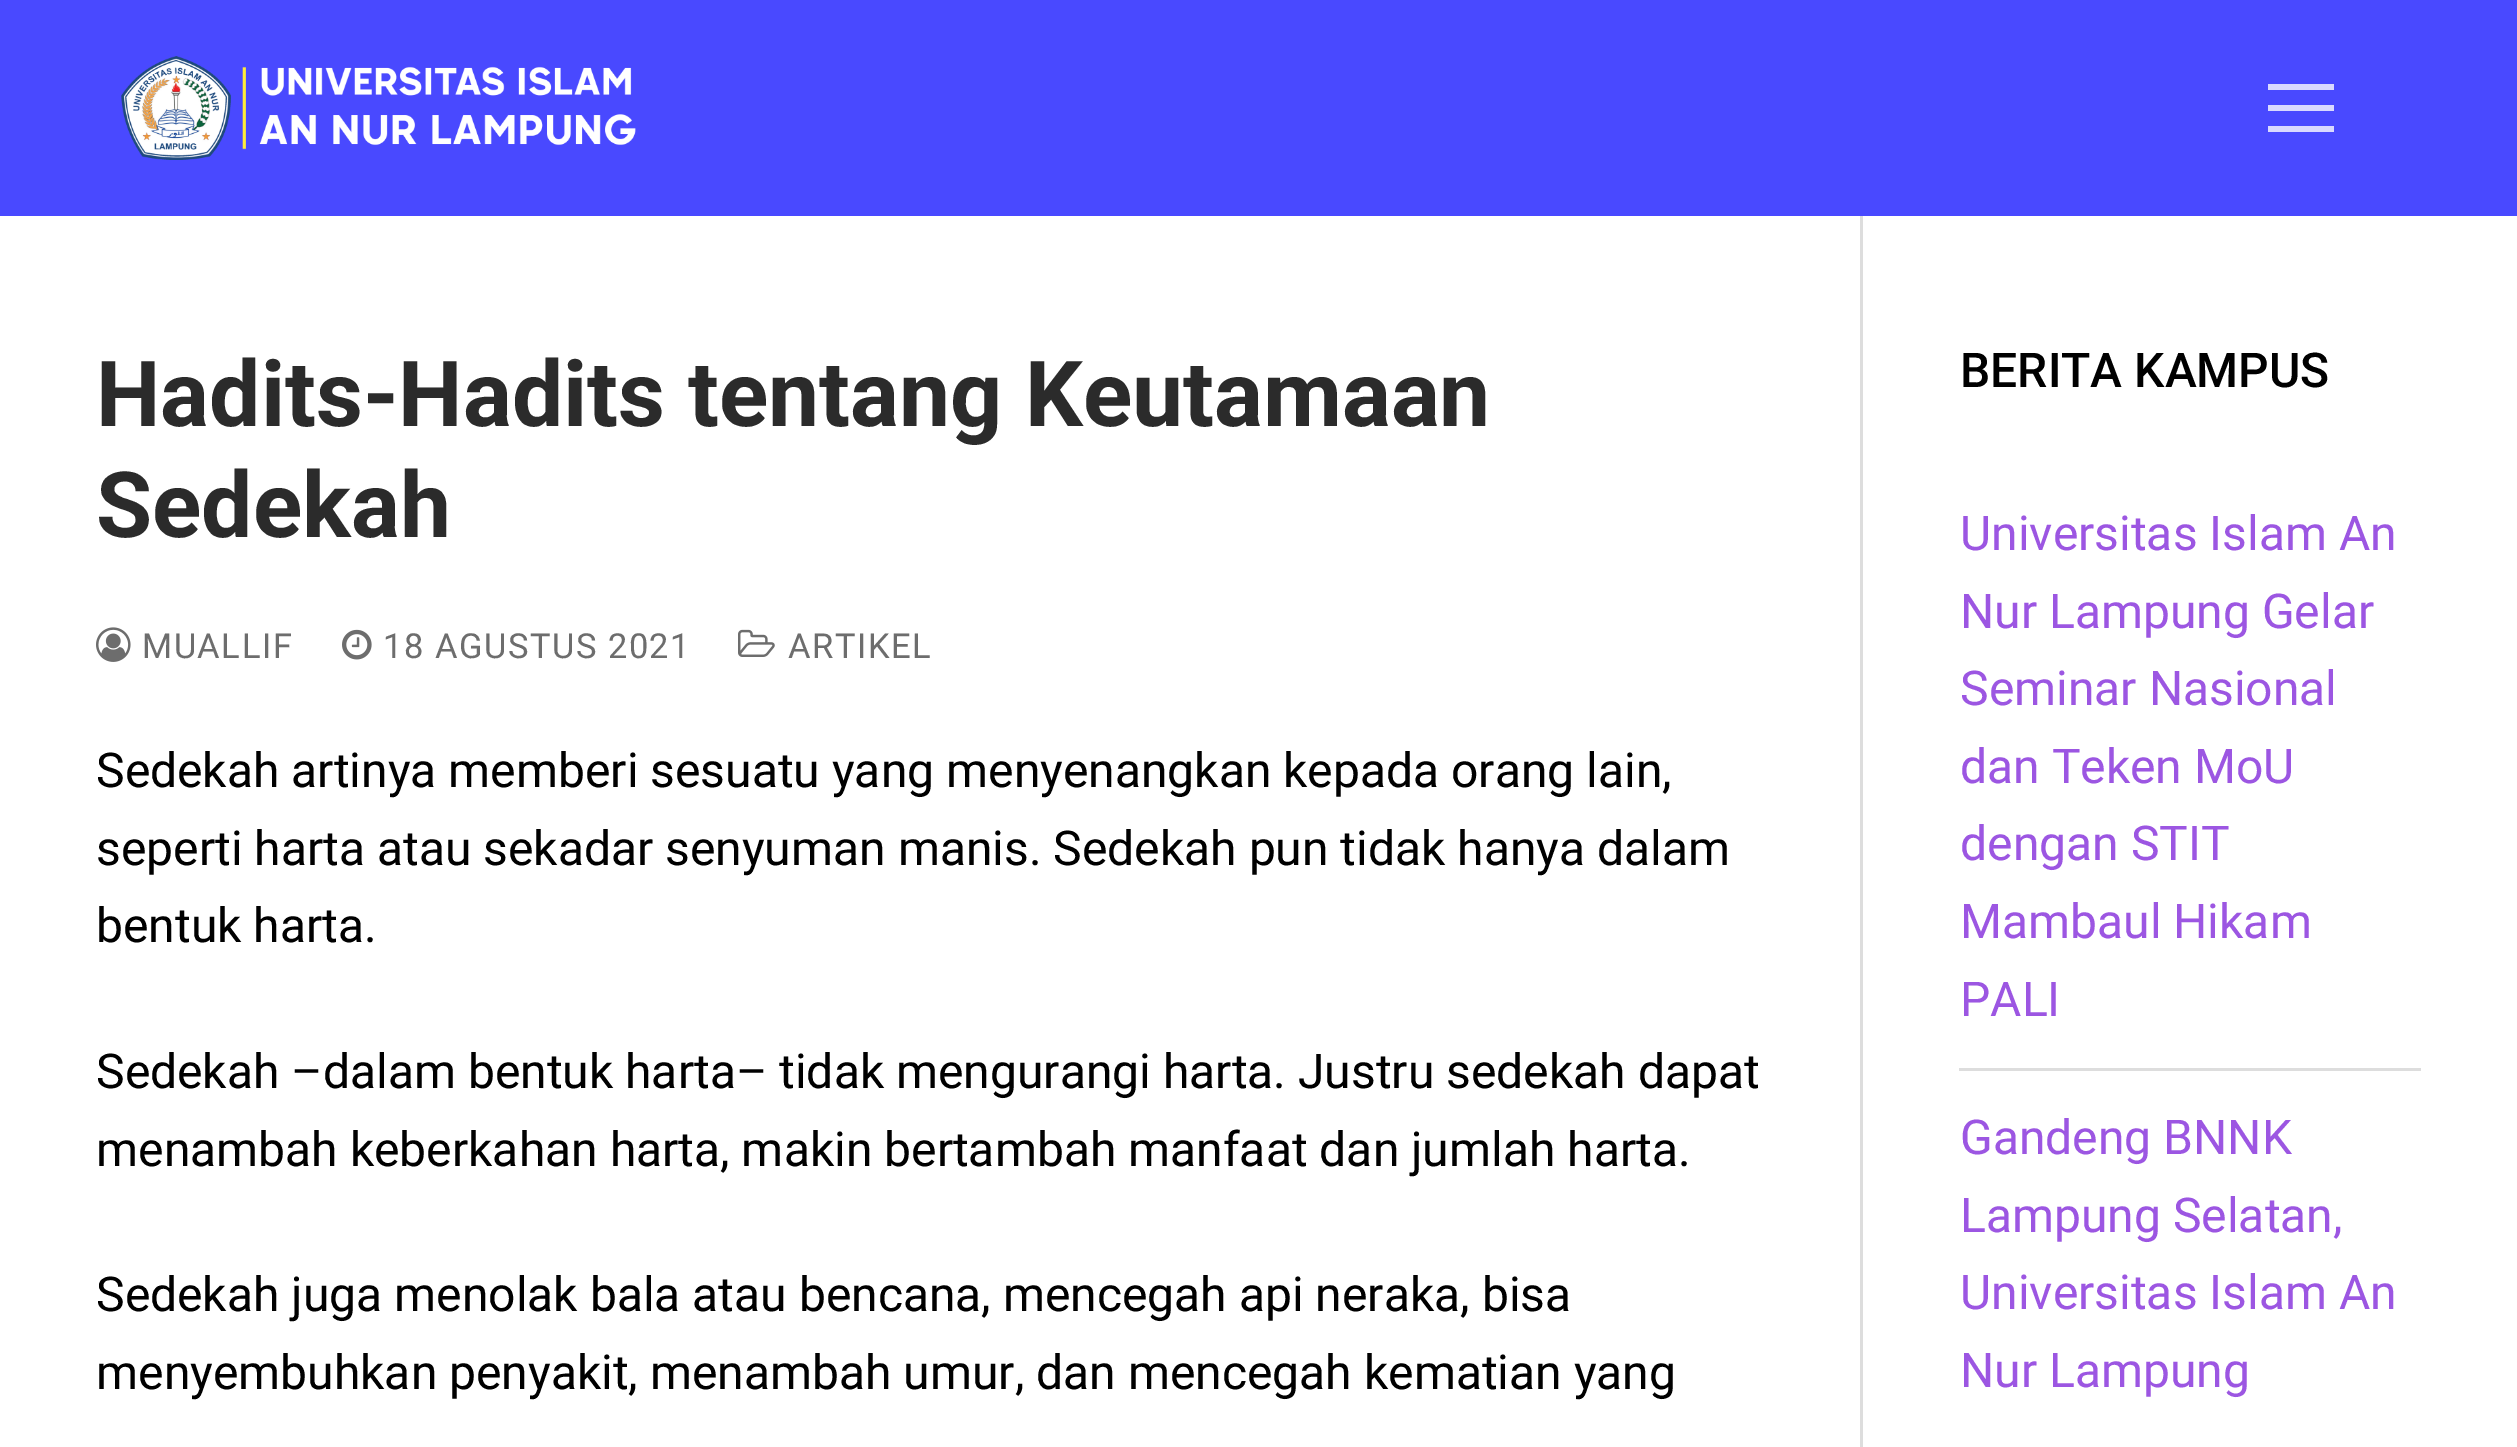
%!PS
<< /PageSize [2517 1447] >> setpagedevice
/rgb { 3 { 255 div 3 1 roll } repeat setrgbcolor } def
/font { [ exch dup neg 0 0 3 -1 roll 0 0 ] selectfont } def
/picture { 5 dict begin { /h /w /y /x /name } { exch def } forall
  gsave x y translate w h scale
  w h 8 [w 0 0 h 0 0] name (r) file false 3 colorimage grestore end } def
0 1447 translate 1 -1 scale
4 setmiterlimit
255 255 255 rgb
0 0 2517 1447 rectfill
73 73 255 rgb
0 0 2517 216 rectfill
(img/1.rgb) 121 56 515 104 picture
[
  [2268 105 66 6 217 217 255]
  [2268 84 66 6 217 217 255]
  [2268 126 66 6 217 217 255]
  [1860 216 3 1231 221 221 221]
] { aload pop rgb rectfill } forall
(img/2.rgb) 96 627 35 35 picture
(img/3.rgb) 342 629 30 31 picture
(img/4.rgb) 738 629 37 28 picture
1959 1068 462 3 rectfill
/Roboto-Bold 91.25 font
43 43 43 rgb
96 426 moveto (Hadits-Hadits tentang Keutamaan) show
96 537 moveto (Sedekah) show
/Roboto-Regular 34.5 font
109 109 109 rgb
142 658 moveto 1.5 0 (MUALLIF) ashow
383 658 moveto 1.5 0 (18 AGUSTUS 2021) ashow
788 658 moveto 1.5 0 (ARTIKEL) ashow
/Roboto-Regular 48 font
0 0 0 rgb
[
  [(Sedekah artinya memberi sesuatu yang menyenangkan kepada orang lain,) 96 787]
  [(seperti harta atau sekadar senyuman manis. Sedekah pun tidak hanya dalam) 96 865]
  [(bentuk harta.) 96 942]
  [(Sedekah –dalam bentuk harta– tidak mengurangi harta. Justru sedekah dapat) 96 1088]
  [(menambah keberkahan harta, makin bertambah manfaat dan jumlah harta.) 96 1166]
  [(Sedekah juga menolak bala atau bencana, mencegah api neraka, bisa) 96 1311]
  [(menyembuhkan penyakit, menambah umur, dan mencegah kematian yang) 96 1389]
] { aload pop moveto show } forall
/Roboto-Medium 48 font
1960 387 moveto (BERITA KAMPUS) show
/Roboto-Regular 48 font
156 86 226 rgb
[
  [(Universitas Islam An) 1960 550]
  [(Nur Lampung Gelar) 1960 628]
  [(Seminar Nasional) 1960 705]
  [(dan Teken MoU) 1960 783]
  [(dengan STIT) 1960 860]
  [(Mambaul Hikam) 1960 938]
  [(PALI) 1960 1016]
  [(Gandeng BNNK) 1960 1154]
  [(Lampung Selatan,) 1960 1232]
  [(Universitas Islam An) 1960 1309]
  [(Nur Lampung) 1960 1387]
] { aload pop moveto show } forall
showpage
